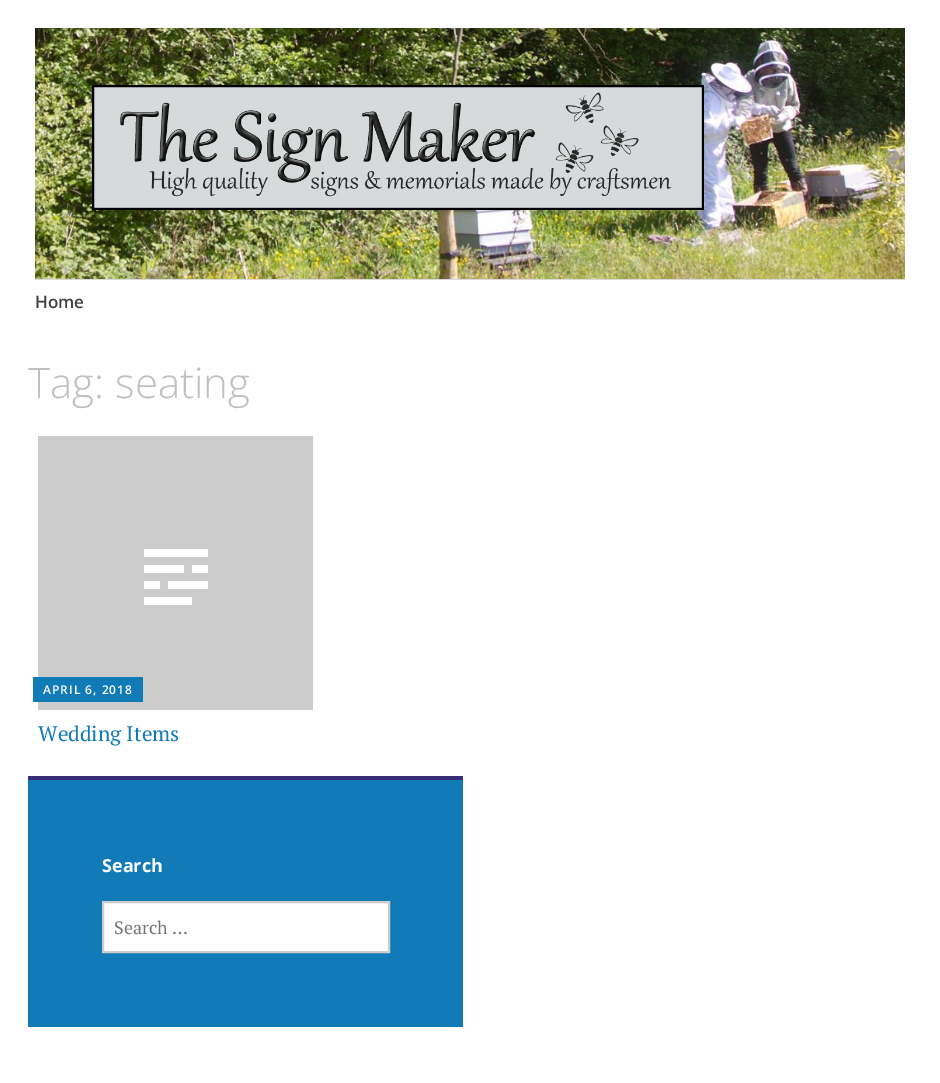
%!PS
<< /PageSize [940 1083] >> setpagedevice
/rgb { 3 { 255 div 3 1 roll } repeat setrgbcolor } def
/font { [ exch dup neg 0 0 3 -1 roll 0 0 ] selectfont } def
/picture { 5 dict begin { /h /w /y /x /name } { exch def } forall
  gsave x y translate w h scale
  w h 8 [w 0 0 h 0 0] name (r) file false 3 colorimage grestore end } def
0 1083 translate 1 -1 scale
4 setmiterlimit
255 255 255 rgb
0 0 940 1083 rectfill
(img/1.rgb) 35 28 870 251 picture
(img/2.rgb) 92 85 612 125 picture
217 217 217 rgb
35 279 870 1 rectfill
204 204 204 rgb
38 436 275 274 rectfill
255 255 255 rgb
144 549 moveto 208 549 lineto 208 557 lineto 144 557 lineto closepath 184 565 moveto 184 573 lineto 144 573 lineto 144 565 lineto closepath 192 573 moveto 192 565 lineto 208 565 lineto 208 573 lineto closepath 168 589 moveto 168 581 lineto 208 581 lineto 208 589 lineto closepath 160 581 moveto 160 589 lineto 144 589 lineto 144 581 lineto closepath 144 605 moveto 144 597 lineto 192 597 lineto 192 605 lineto closepath fill
[
  [33 677 110 25 17 123 184]
  [28 780 435 247 17 123 184]
  [28 776 435 4 54 46 119]
] { aload pop rgb rectfill } forall
255 255 255 rgb
103 902 moveto 389 902 lineto 389 952 lineto 103 952 lineto closepath gsave fill grestore
204 204 204 rgb
2 setlinewidth
stroke
/OpenSans-SemiBold 17 font
64 64 64 rgb
35 308 moveto (Home) show
/OpenSans-Light 42 font
192 192 192 rgb
28 398 moveto (Tag: seating) show
/OpenSans-SemiBold 12 font
255 255 255 rgb
43 694 moveto 1 0 (APRIL 6, 2018) ashow
/PTSerif-Regular 21 font
17 123 184 rgb
38 741 moveto (Wedding Items) show
/OpenSans-Bold 18 font
255 255 255 rgb
102 872 moveto (Search) show
/PTSerif-Regular 18 font
117 117 117 rgb
114 934 moveto (Search …) show
showpage
